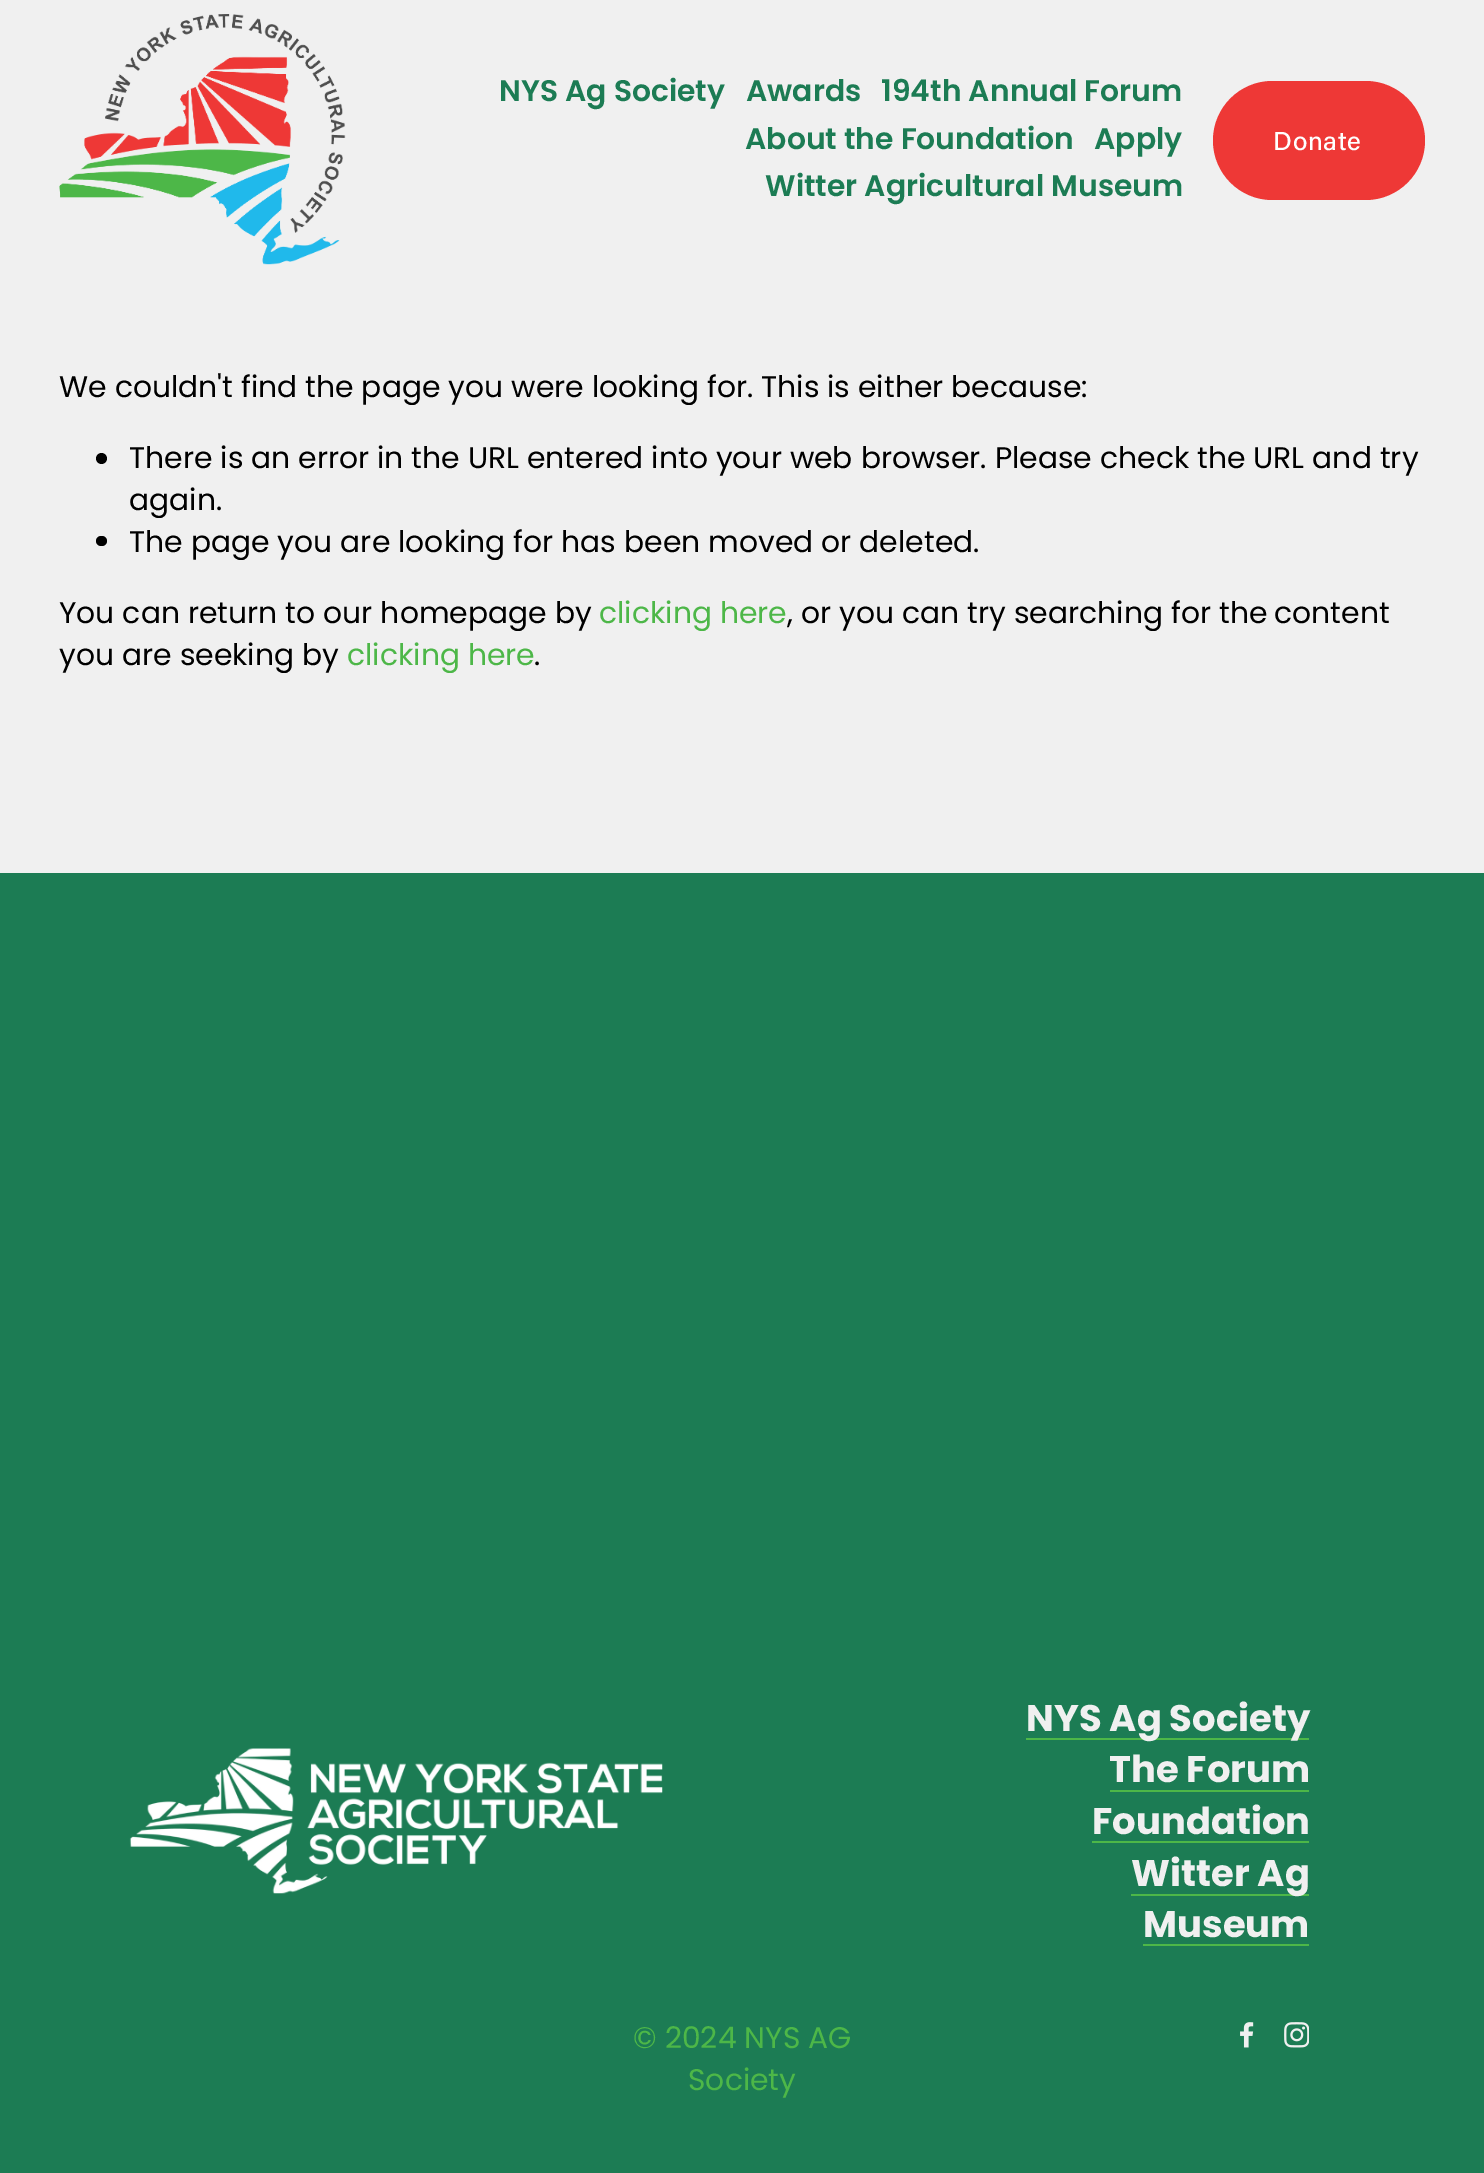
%!PS
<< /PageSize [1484 2173] >> setpagedevice
/rgb { 3 { 255 div 3 1 roll } repeat setrgbcolor } def
/font { [ exch dup neg 0 0 3 -1 roll 0 0 ] selectfont } def
/circle { newpath 0 360 arc closepath } def
/roundrect { 5 dict begin { /r /h /w /y /x } { exch def } forall
  x r add y moveto x w add y 2 copy h add r arct x w add y h add x 1 index r arct
  x y h add x y r arct x y 2 copy exch w add exch r arct closepath end } def
/picture { 5 dict begin { /h /w /y /x /name } { exch def } forall
  gsave x y translate w h scale
  w h 8 [w 0 0 h 0 0] name (r) file false 3 colorimage grestore end } def
0 2173 translate 1 -1 scale
4 setmiterlimit
240 240 240 rgb
0 0 1484 2173 rectfill
(img/1.rgb) 59 14 287 251 picture
238 56 54 rgb
1213 81 212 119 59.5 roundrect fill
0 0 0 rgb
101.5 458.5 5.5 circle fill
96 536 11 10 5 roundrect fill
28 124 84 rgb
0 873 1484 1300 rectfill
(img/2.rgb) 129 1748 534 146 picture
[
  [1026 1738 283 2 77 183 72]
  [1110 1790 199 2 77 183 72]
  [1092 1841 217 2 77 183 72]
  [1131 1894 178 2 77 183 72]
  [1143 1944 166 2 77 183 72]
] { aload pop rgb rectfill } forall
(img/3.rgb) 1240 2022 14 26 picture
(img/4.rgb) 1284 2022 25 26 picture
/Poppins-SemiBold 29.8 font
28 124 84 rgb
[
  [(NYS Ag Society) 499 101]
  [(Awards) 746 101]
  [(194th Annual Forum) 881 101]
  [(About the Foundation) 745 149]
  [(Apply) 1094 149]
  [(Witter Agricultural Museum) 765 196]
] { aload pop moveto show } forall
/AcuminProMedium-Medium 26 font
255 255 255 rgb
1273 150 moveto 0.75 0 (Donate) ashow
/Poppins-Regular 29.8 font
0 0 0 rgb
[
  [(We couldn't find the page you were looking for. This is either because:) 59 397]
  [(There is an error in the URL entered into your web browser. Please check the URL and try) 129 468]
  [(again.) 129 510]
  [(The page you are looking for has been moved or deleted.) 129 552]
  [(You can return to our homepage by) 59 623]
] { aload pop moveto show } forall
77 183 72 rgb
599 623 moveto (clicking here) show
0 0 0 rgb
[
  [(, or you can try searching for the) 787 623]
  [(content) 1274 623]
  [(you are seeking by) 59 665]
] { aload pop moveto show } forall
77 183 72 rgb
347 665 moveto (clicking here) show
0 0 0 rgb
534 665 moveto (.) show
/Poppins-Bold 37 font
240 240 240 rgb
[
  [(NYS Ag Society) 1026 1731]
  [(The Forum) 1109 1782]
  [(Foundation) 1092 1834]
  [(Witter Ag) 1131 1886]
  [(Museum) 1143 1937]
] { aload pop moveto show } forall
/Poppins-Regular 29.8 font
77 183 72 rgb
633 2048 moveto (© 2024 NYS AG) show
688 2090 moveto (Society) show
showpage
